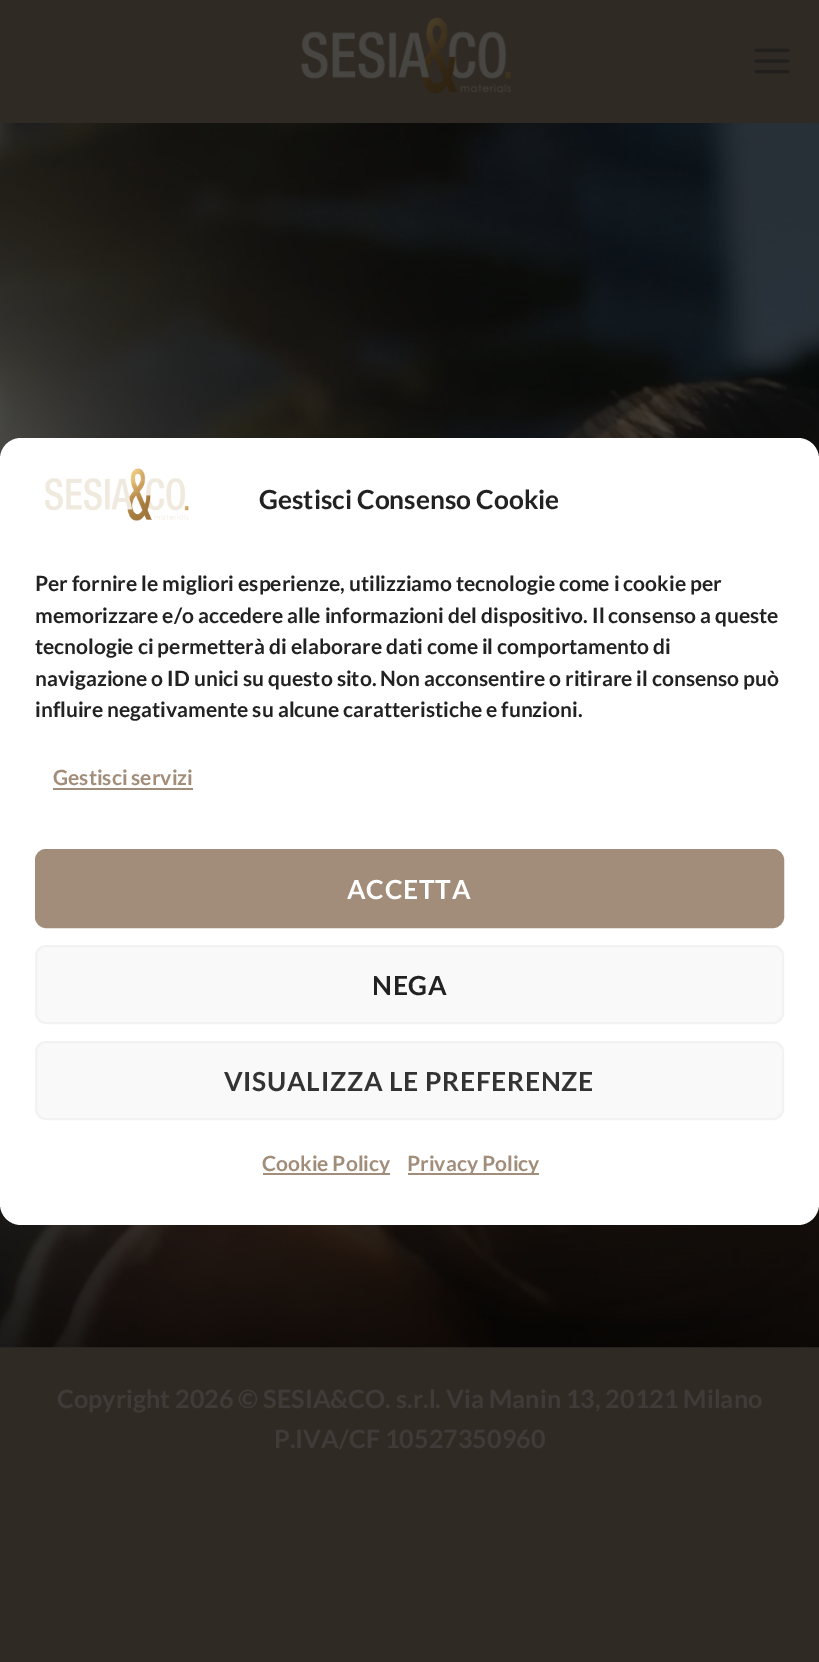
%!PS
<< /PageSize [819 1662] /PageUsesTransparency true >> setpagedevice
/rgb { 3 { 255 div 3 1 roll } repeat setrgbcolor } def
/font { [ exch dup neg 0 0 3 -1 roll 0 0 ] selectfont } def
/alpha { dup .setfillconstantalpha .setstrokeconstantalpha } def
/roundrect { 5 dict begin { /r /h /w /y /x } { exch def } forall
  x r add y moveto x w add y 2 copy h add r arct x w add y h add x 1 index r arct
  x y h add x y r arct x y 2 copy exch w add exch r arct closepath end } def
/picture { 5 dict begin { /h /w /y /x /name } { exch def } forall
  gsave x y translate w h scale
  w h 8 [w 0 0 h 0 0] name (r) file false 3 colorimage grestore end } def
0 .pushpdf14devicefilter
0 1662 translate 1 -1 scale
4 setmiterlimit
48 42 36 rgb
0 0 819 1662 rectfill
(img/4.rgb) 0 123 819 1225 picture
255 255 255 rgb
0 438 819 787 21 roundrect fill
(img/1.rgb) 45 468 144 53 picture
161 141 121 rgb
53 788 140 2 rectfill
36 850 747 77 10 roundrect gsave fill grestore
2 setlinewidth
stroke
249 249 249 rgb
36 946 747 77 10 roundrect gsave fill grestore
242 242 242 rgb
stroke
249 249 249 rgb
36 1042 747 77 10 roundrect gsave fill grestore
242 242 242 rgb
stroke
161 141 121 rgb
263 1173 127 2 rectfill
408 1173 131 2 rectfill
(img/2.rgb) 301 17 210 77 picture
(img/3.rgb) 754 48 36 26 picture
0.1 alpha
36 36 36 rgb
437 123 5 2 rectfill
/Lato-Bold 26.25 font
1 alpha
34 34 34 rgb
259 509 moveto (Gestisci Consenso Cookie) show
/Lato-Bold 21 font
[
  [(Per fornire le migliori esperienze, utilizziamo tecnologie come i cookie per) 35 591]
  [(memorizzare e/o accedere alle informazioni del dispositivo. Il consenso a queste) 35 623]
  [(tecnologie ci permetterà di elaborare dati come il comportamento di) 35 654]
  [(navigazione o ID unici su questo sito. Non acconsentire o ritirare il consenso può) 35 686]
  [(influire negativamente su alcune caratteristiche e funzioni.) 35 717]
] { aload pop moveto show } forall
161 141 121 rgb
53 785 moveto (Gestisci servizi) show
/Lato-Bold 26.25 font
255 255 255 rgb
347 899 moveto 0.75 0 (ACCETTA) ashow
34 34 34 rgb
372 995 moveto 0.75 0 (NEGA) ashow
51 51 51 rgb
224 1091 moveto 0.75 0 (VISUALIZZA LE PREFERENZE) ashow
/Lato-Bold 21 font
161 141 121 rgb
262 1171 moveto (Cookie Policy) show
407 1171 moveto (Privacy Policy) show
/Lato-Bold 25.2 font
62 59 56 rgb
57 1408 moveto (Copyright 2026 © SESIA&CO. s.r.l. Via Manin 13, 20121 Milano) show
274 1448 moveto (P.IVA/CF 10527350960) show
.poppdf14devicefilter showpage
